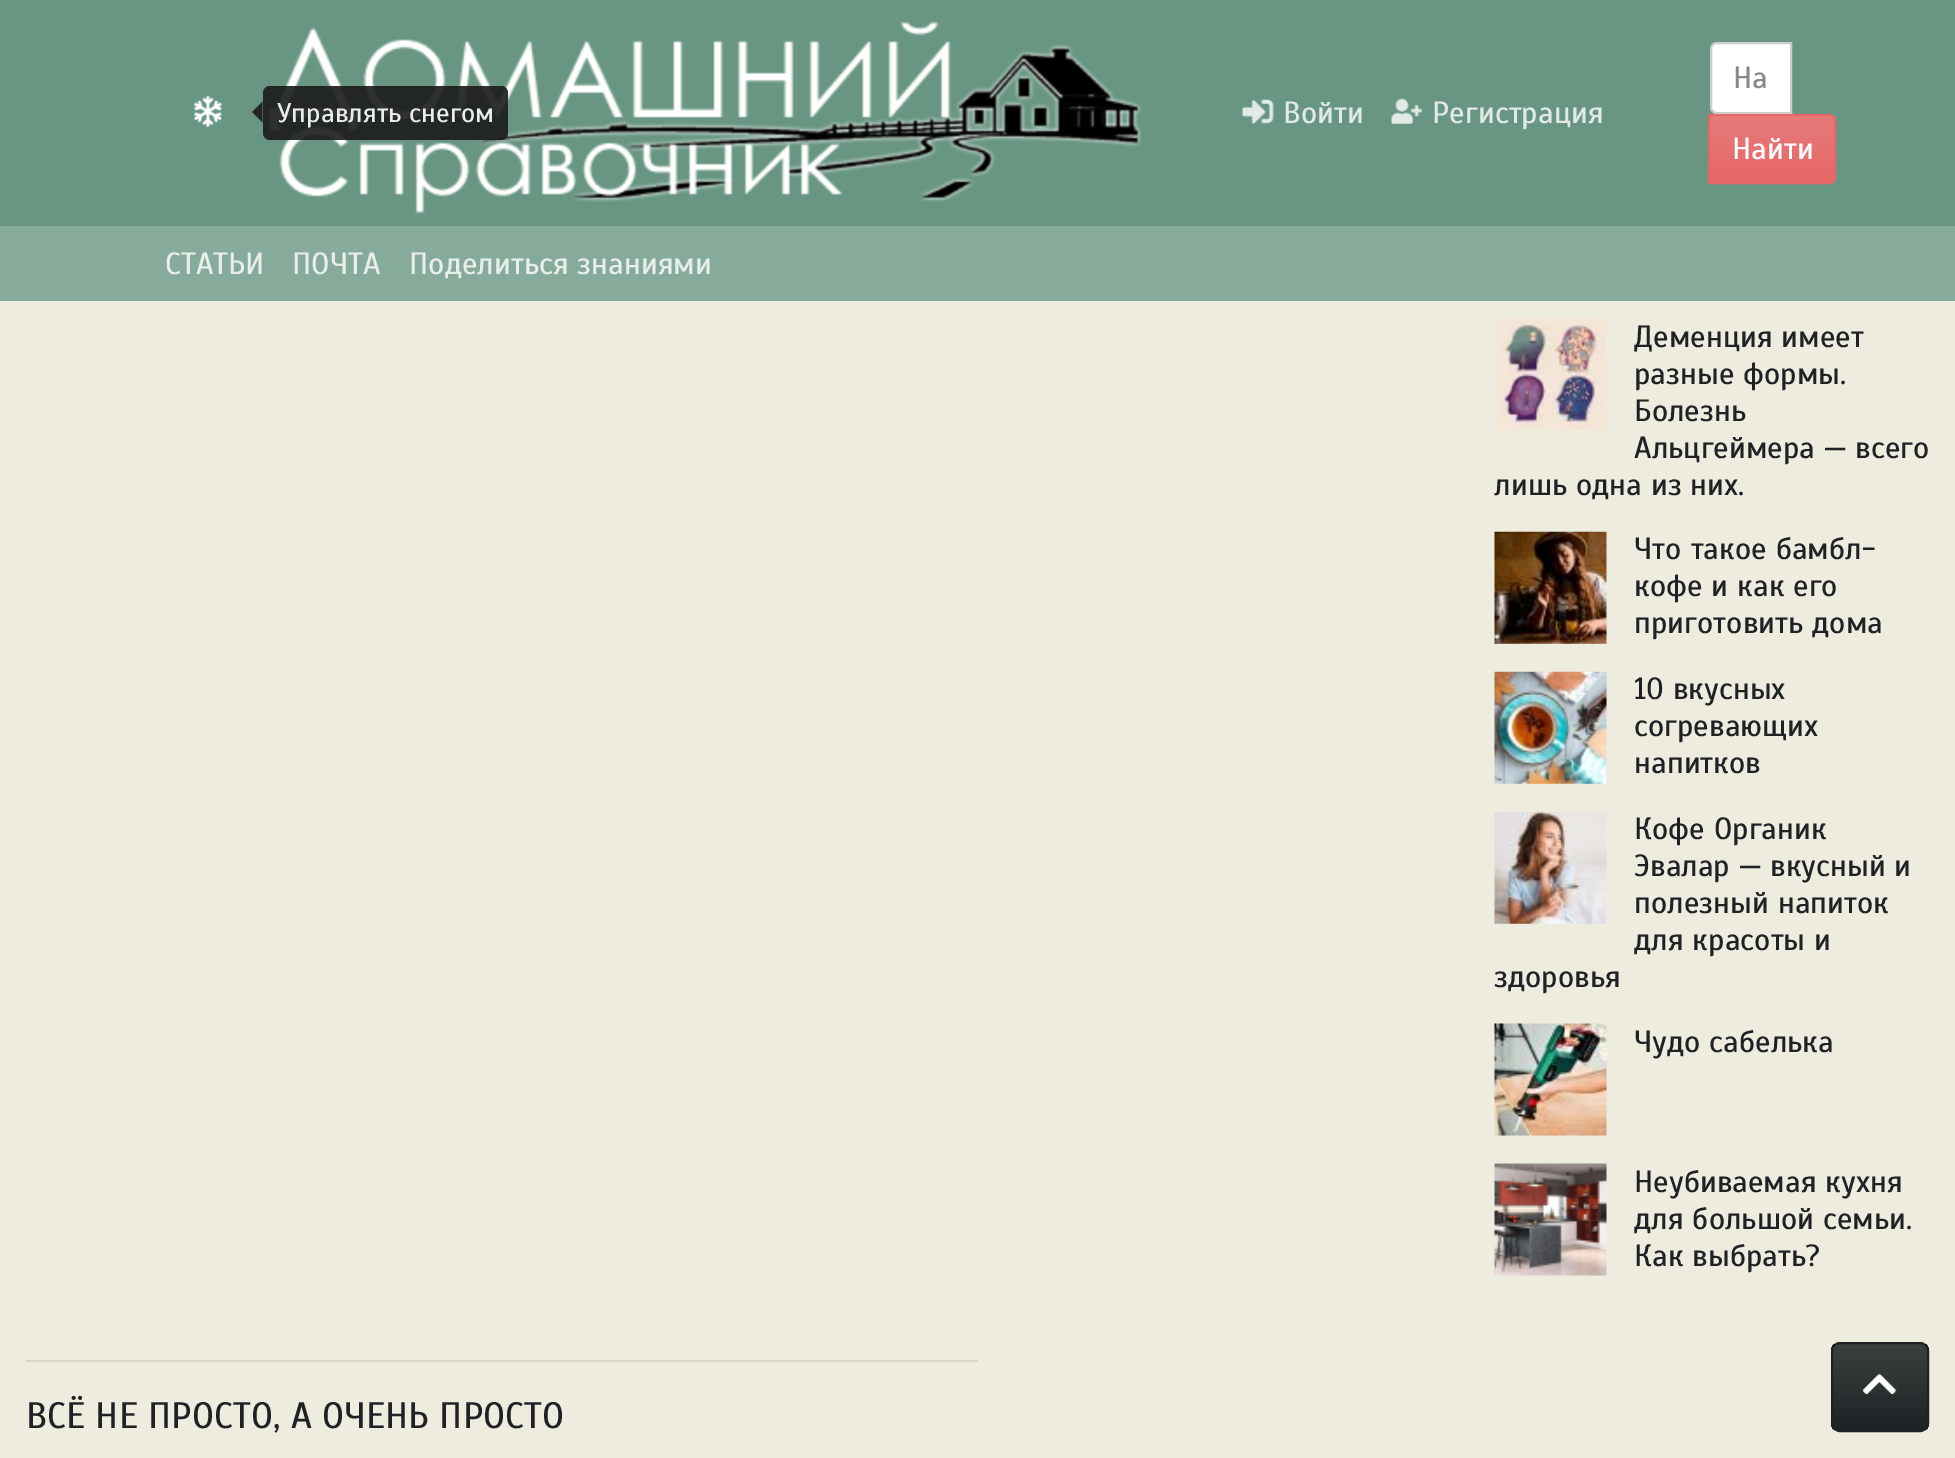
%!PS
<< /PageSize [1955 1458] /PageUsesTransparency true >> setpagedevice
/rgb { 3 { 255 div 3 1 roll } repeat setrgbcolor } def
/font { [ exch dup neg 0 0 3 -1 roll 0 0 ] selectfont } def
/alpha { dup .setfillconstantalpha .setstrokeconstantalpha } def
/roundrect { 5 dict begin { /r /h /w /y /x } { exch def } forall
  x r add y moveto x w add y 2 copy h add r arct x w add y h add x 1 index r arct
  x y h add x y r arct x y 2 copy exch w add exch r arct closepath end } def
/picture { 5 dict begin { /h /w /y /x /name } { exch def } forall
  gsave x y translate w h scale
  w h 8 [w 0 0 h 0 0] name (r) file false 3 colorimage grestore end } def
0 .pushpdf14devicefilter
0 1458 translate 1 -1 scale
4 setmiterlimit
237 236 223 rgb
0 0 1955 1458 rectfill
105 150 130 rgb
0 0 1955 226 rectfill
(img/1.rgb) 194 95 28 32 picture
(img/2.rgb) 268 21 874 193 picture
(img/3.rgb) 1242 99 32 25 picture
(img/4.rgb) 1391 98 32 26 picture
255 255 255 rgb
1717 43 moveto 1791 43 lineto 1791 113 lineto 1717 113 lineto 1713.5 113 1711 110.5 1711 107 curveto 1711 49 lineto 1711 45.5 1713.5 43 1717 43 curveto closepath gsave fill grestore
204 204 204 rgb
2 setlinewidth
stroke
gsave
1708 114 moveto 1829 114 lineto 1833 114 1836 117 1836 121 curveto 1836 177 lineto 1836 181 1833 184 1829 184 curveto 1708 184 lineto closepath clip newpath
gsave 1710 116 moveto 1836 116 lineto 1836 182 lineto 1710 182 lineto closepath clip newpath
<< /ShadingType 2 /ColorSpace /DeviceRGB /Coords [1772 116 1772 182] /Extend [true true] /Function << /FunctionType 2 /Domain [0 1] /C0 [0.906 0.482 0.475] /C1 [0.902 0.404 0.404] /N 1 >> >> shfill grestore
grestore
230 103 103 rgb
1709 115 moveto 1829 115 lineto 1832.5 115 1835 117.5 1835 121 curveto 1835 177 lineto 1835 180.5 1832.5 183 1829 183 curveto 1709 183 lineto closepath stroke
135 171 155 rgb
0 226 1955 75 rectfill
34 38 36 rgb
262.5 101.5 moveto 262.5 122.5 lineto 252 112 lineto closepath fill
0.9 alpha
26 26 26 rgb
263 86 245 54 7 roundrect fill
1 alpha
(img/5.rgb) 1494 318 113 113 picture
(img/6.rgb) 1494 531 113 113 picture
(img/7.rgb) 1494 671 113 113 picture
(img/8.rgb) 1494 811 113 113 picture
(img/9.rgb) 1494 1023 113 113 picture
(img/10.rgb) 1494 1163 113 113 picture
216 215 203 rgb
26 1360 952 2 rectfill
gsave
1831 1342 98 90 9 roundrect clip newpath
gsave 1831 1344 moveto 1929 1344 lineto 1929 1430 lineto 1831 1430 lineto closepath clip newpath
<< /ShadingType 2 /ColorSpace /DeviceRGB /Coords [1880 1344 1880 1430] /Extend [true true] /Function << /FunctionType 2 /Domain [0 1] /C0 [0.239 0.251 0.251] /C1 [0.118 0.133 0.141] /N 1 >> >> shfill grestore
grestore
30 34 36 rgb
1832 1343 96 88 8 roundrect stroke
(img/11.rgb) 1862 1374 35 20 picture
/Scada-Regular 30.75 font
225 234 230 rgb
1283 123 moveto (Войти) show
1432 123 moveto (Регистрация) show
136 136 136 rgb
1733 88 moveto (На) show
255 255 255 rgb
1732 159 moveto (Найти) show
231 238 235 rgb
[
  [(СТАТЬИ) 165 274]
  [(ПОЧТА) 292 274]
  [(Поделиться знаниями) 409 274]
] { aload pop moveto show } forall
/Scada-Regular 27 font
277 122 moveto (Управлять снегом) show
/Scada-Regular 30.75 font
30 34 36 rgb
[
  [(Деменция имеет) 1634 347]
  [(разные формы.) 1634 384]
  [(Болезнь) 1634 421]
  [(Альцгеймера — всего) 1634 458]
  [(лишь одна из них.) 1494 495]
  [(Что такое бамбл-) 1634 559]
  [(кофе и как его) 1634 596]
  [(приготовить дома) 1634 633]
  [(10 вкусных) 1634 699]
  [(согревающих) 1634 736]
  [(напитков) 1634 773]
  [(Кофе Органик) 1634 839]
  [(Эвалар — вкусный и) 1634 876]
  [(полезный напиток) 1634 913]
  [(для красоты и) 1634 950]
  [(здоровья) 1494 987]
  [(Чудо сабелька) 1634 1052]
  [(Неубиваемая кухня) 1634 1192]
  [(для большой семьи.) 1634 1229]
  [(Как выбрать?) 1634 1266]
] { aload pop moveto show } forall
/Scada-Regular 36.75 font
26 1428 moveto (ВСЁ НЕ ПРОСТО, А ОЧЕНЬ ПРОСТО) show
.poppdf14devicefilter showpage
